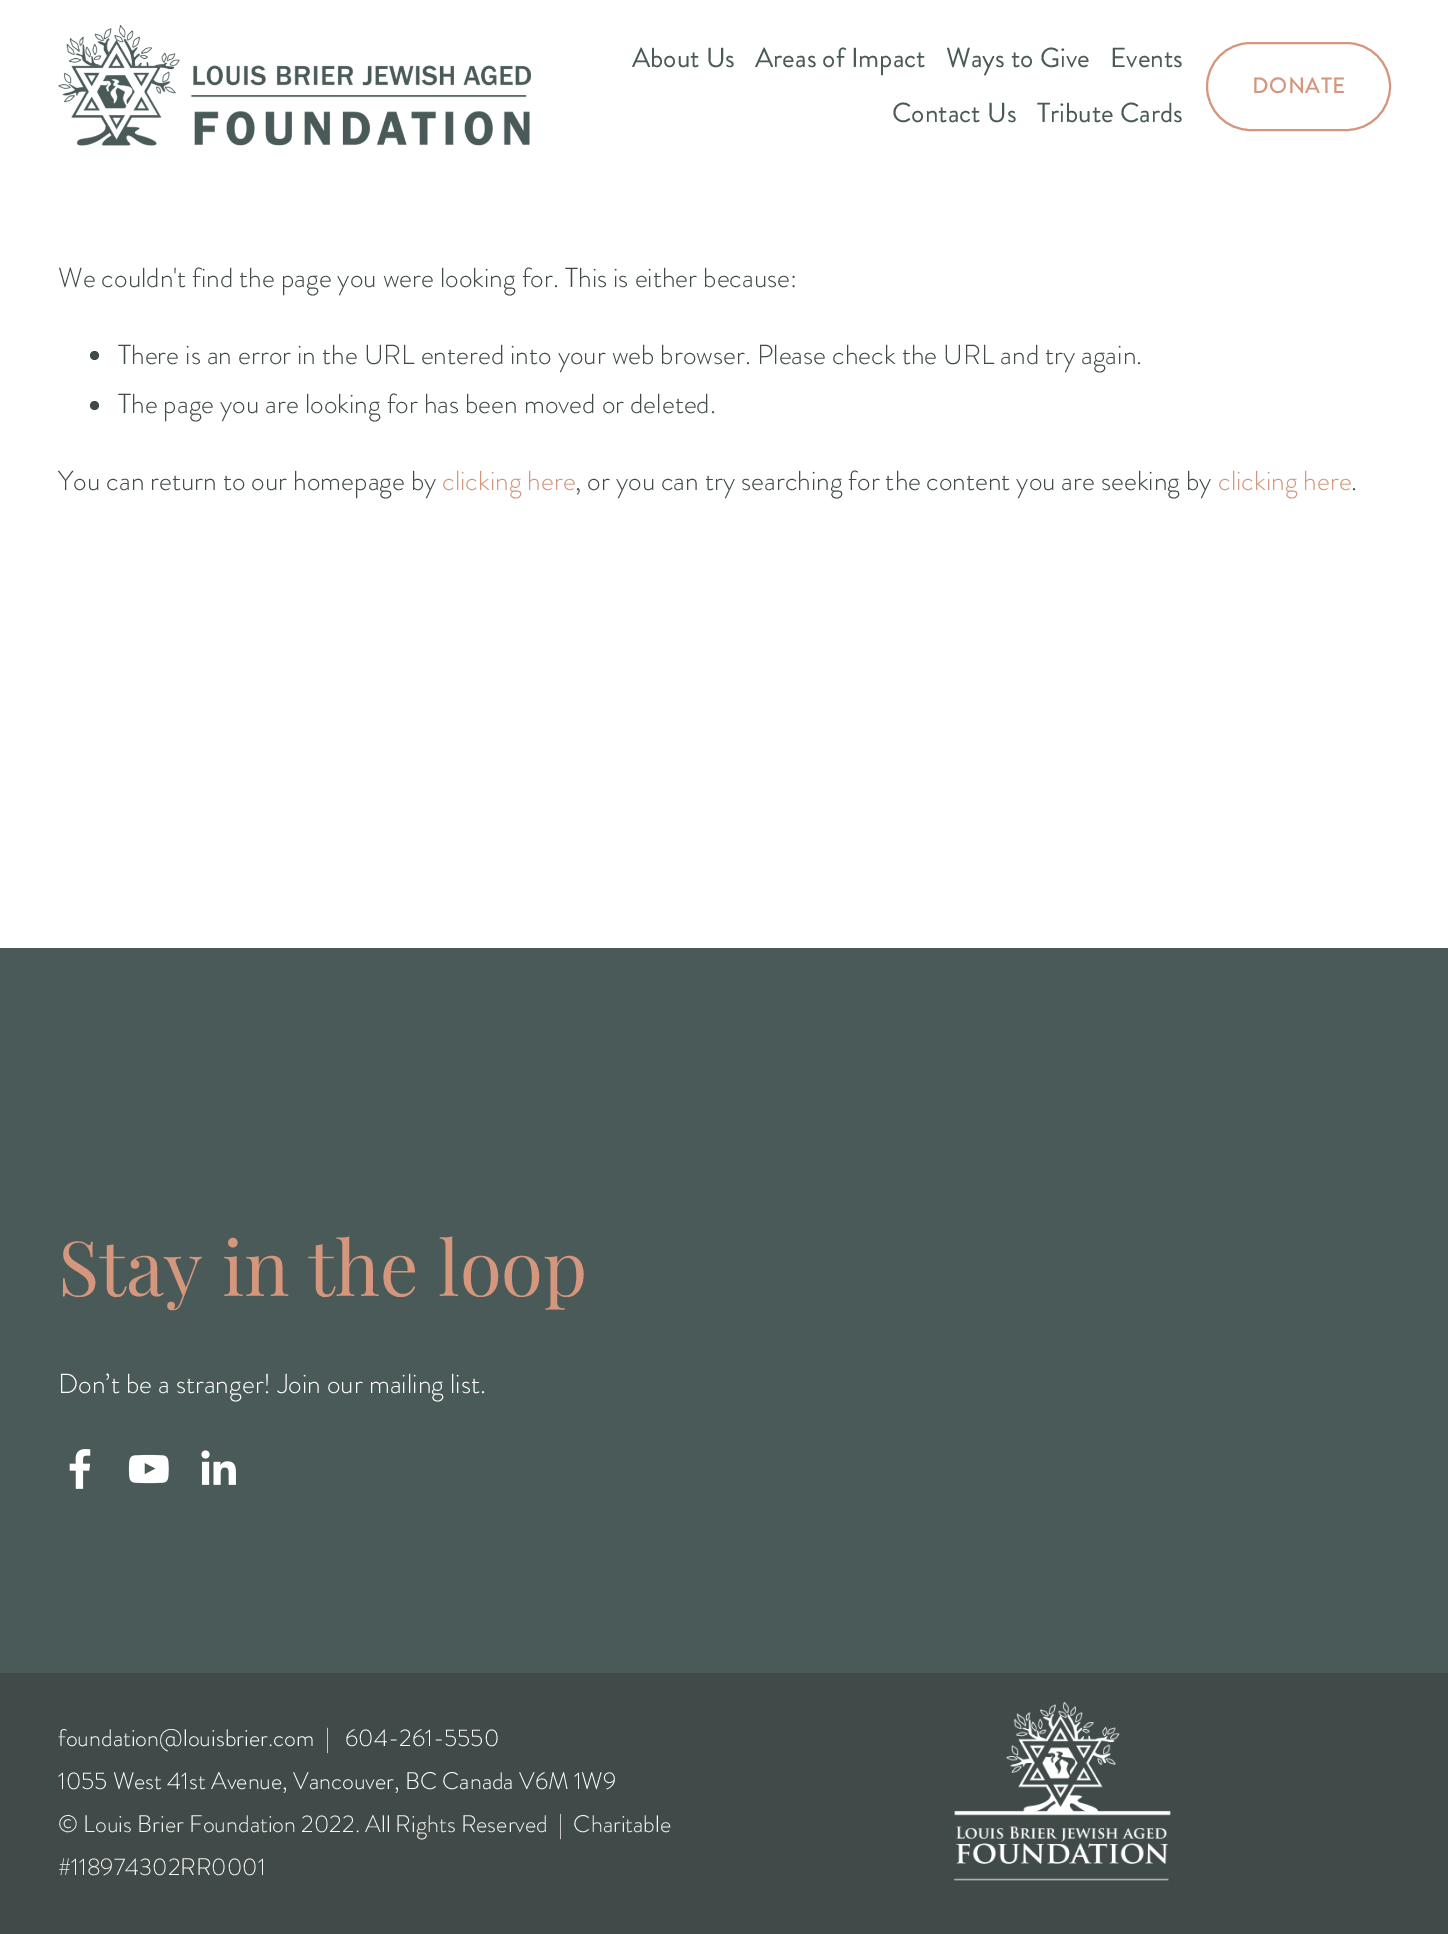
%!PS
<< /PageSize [1448 1934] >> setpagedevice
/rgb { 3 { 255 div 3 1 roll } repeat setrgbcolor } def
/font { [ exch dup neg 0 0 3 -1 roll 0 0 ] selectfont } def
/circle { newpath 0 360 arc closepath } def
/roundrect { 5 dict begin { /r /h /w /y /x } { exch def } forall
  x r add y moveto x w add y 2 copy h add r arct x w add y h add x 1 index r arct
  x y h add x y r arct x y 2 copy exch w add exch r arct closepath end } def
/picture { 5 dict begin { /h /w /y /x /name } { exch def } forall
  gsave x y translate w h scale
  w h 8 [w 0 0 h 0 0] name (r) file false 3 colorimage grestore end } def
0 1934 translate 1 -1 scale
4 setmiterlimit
255 255 255 rgb
0 0 1448 1934 rectfill
(img/1.rgb) 58 25 473 121 picture
212 150 125 rgb
2 setlinewidth
1207 43 183 87 43.5 roundrect stroke
63 74 73 rgb
94.5 355.5 4.5 circle fill
94.5 405.5 4.5 circle fill
73 90 88 rgb
0 948 1448 725 rectfill
(img/2.rgb) 69 1449 22 40 picture
(img/3.rgb) 128 1454 41 30 picture
(img/4.rgb) 201 1450 35 35 picture
63 74 73 rgb
0 1673 1448 261 rectfill
(img/5.rgb) 954 1702 217 179 picture
/BrandonGrotesque-Regular 27.5 font
73 90 88 rgb
[
  [(About Us) 632 67]
  [(Areas of Impact) 755 67]
  [(Ways to Give) 946 67]
  [(Events) 1110 67]
  [(Contact Us) 892 122]
  [(Tribute Cards) 1037 122]
] { aload pop moveto show } forall
/BrandonGrotesque-Medium 22.25 font
212 150 125 rgb
1252 93 moveto 0.5 0 (DONATE) ashow
/BrandonGrotesque-Light 27.5 font
63 74 73 rgb
[
  [(We couldn't find the page you were looking for. This is either because:) 58 287]
  [(There is an error in the URL entered into your web browser. Please check the URL and try again.) 118 364]
  [(The page you are looking for has been moved or deleted.) 118 413]
  [(You can return to our homepage by) 58 490]
] { aload pop moveto show } forall
212 150 125 rgb
442 490 moveto (clicking here) show
63 74 73 rgb
575 490 moveto (, or you can try searching for the) show
926 490 moveto (content you are seeking by) show
212 150 125 rgb
1218 490 moveto (clicking here) show
63 74 73 rgb
1351 490 moveto (.) show
/PlayfairDisplay-Regular 76.25 font
212 150 125 rgb
58 1296 moveto (Stay in the loop) show
/BrandonGrotesque-Light 27.5 font
255 255 255 rgb
58 1393 moveto (Don’t be a stranger! Join our mailing list.) show
/BrandonGrotesque-Light 24 font
58 1746 moveto (foundation@louisbrier.com) show
247 246 243 rgb
325 1746 moveto (|) show
255 255 255 rgb
345 1746 moveto (604-261-5550) show
58 1789 moveto (1055 West 41st Avenue, Vancouver, BC Canada V6M 1W9) show
247 246 243 rgb
58 1832 moveto (© Louis Brier Foundation 2022. All Rights Reserved  |  Charitable) show
58 1875 moveto (#118974302RR0001) show
showpage
